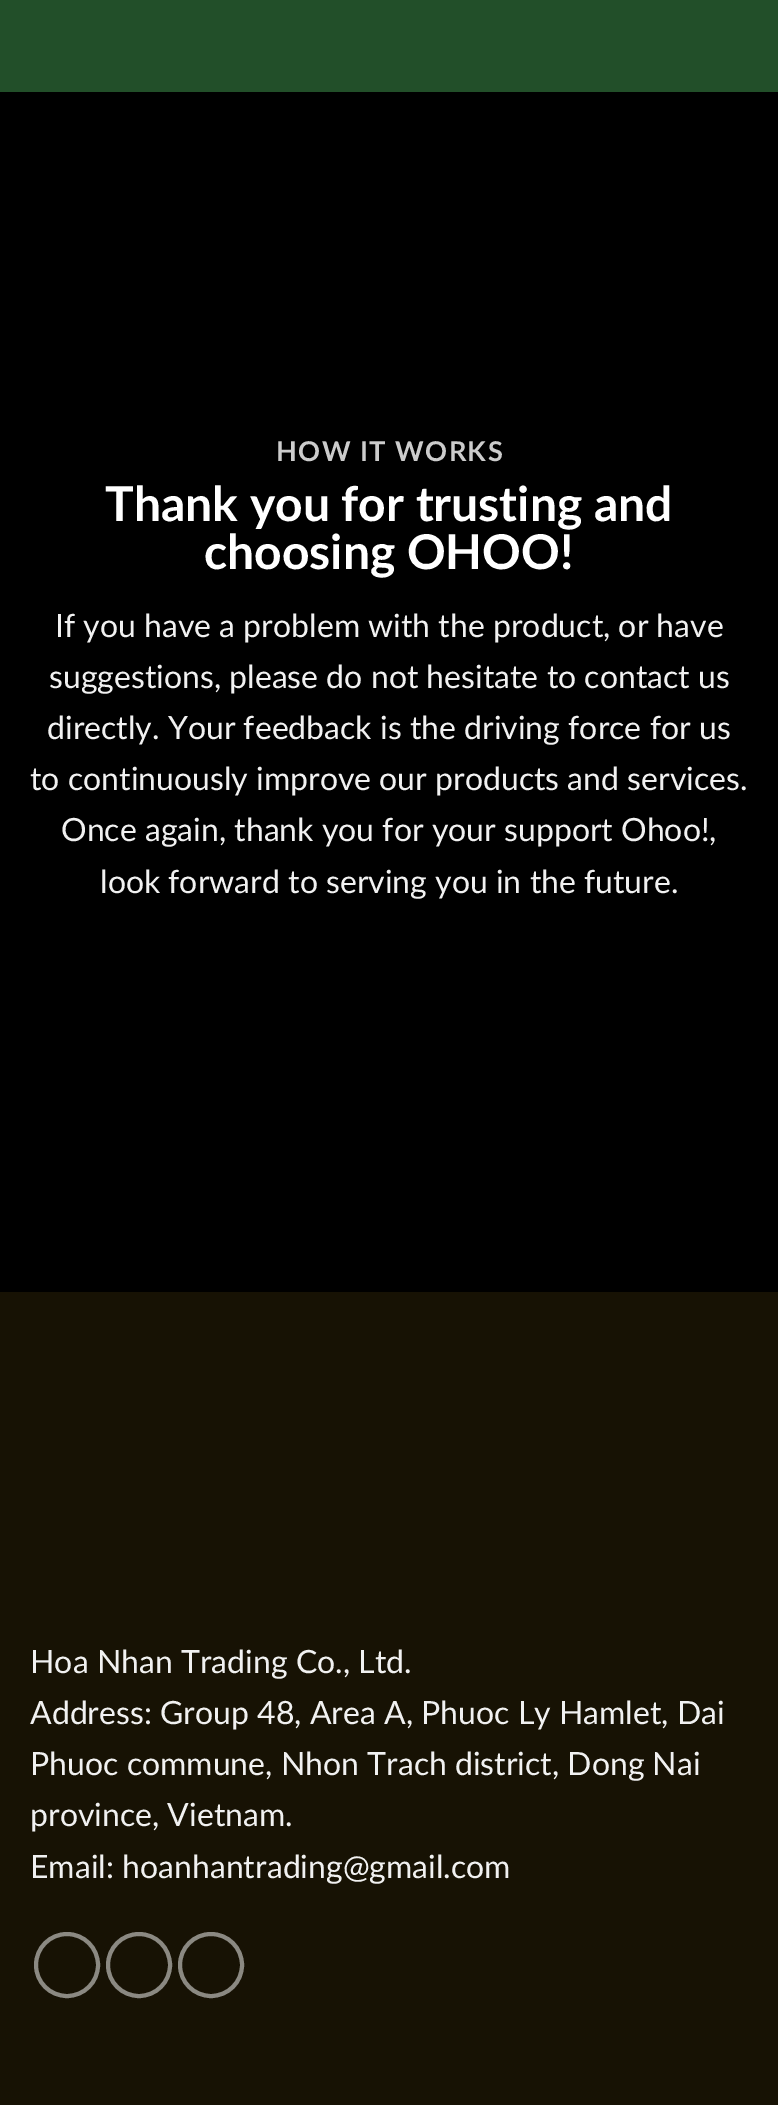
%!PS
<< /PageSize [778 2105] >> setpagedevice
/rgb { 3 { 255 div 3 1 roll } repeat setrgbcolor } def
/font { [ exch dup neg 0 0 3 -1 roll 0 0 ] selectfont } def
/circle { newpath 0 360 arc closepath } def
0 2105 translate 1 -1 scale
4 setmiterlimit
0 0 0 rgb
0 0 778 2105 rectfill
34 79 41 rgb
0 0 778 92 rectfill
23 18 4 rgb
0 1292 778 813 rectfill
139 137 130 rgb
4 setlinewidth
67 1965 31 circle stroke
139 1965 31 circle stroke
211 1965 31 circle stroke
/Lato-Bold 27.25 font
204 204 204 rgb
276 461 moveto 1.4 0 (HOW IT WORKS) ashow
/Lato-Bold 48 font
255 255 255 rgb
105 521 moveto (Thank you for trusting and) show
204 569 moveto (choosing OHOO!) show
/Lato-Regular 32 font
241 241 241 rgb
[
  [(If you have a problem with the product, or have) 55 637]
  [(suggestions, please do not hesitate to contact us) 49 688]
  [(directly. Your feedback is the driving force for us) 47 739]
  [(to continuously improve our products and services.) 30 790]
  [(Once again, thank you for your support Ohoo!,) 61 841]
  [(look forward to serving you in the future.) 100 893]
  [(Hoa Nhan Trading Co., Ltd.) 30 1673]
  [(Address: Group 48, Area A, Phuoc Ly Hamlet, Dai) 30 1724]
  [(Phuoc commune, Nhon Trach district, Dong Nai) 30 1775]
  [(province, Vietnam.) 30 1826]
  [(Email: hoanhantrading@gmail.com) 30 1878]
] { aload pop moveto show } forall
showpage
